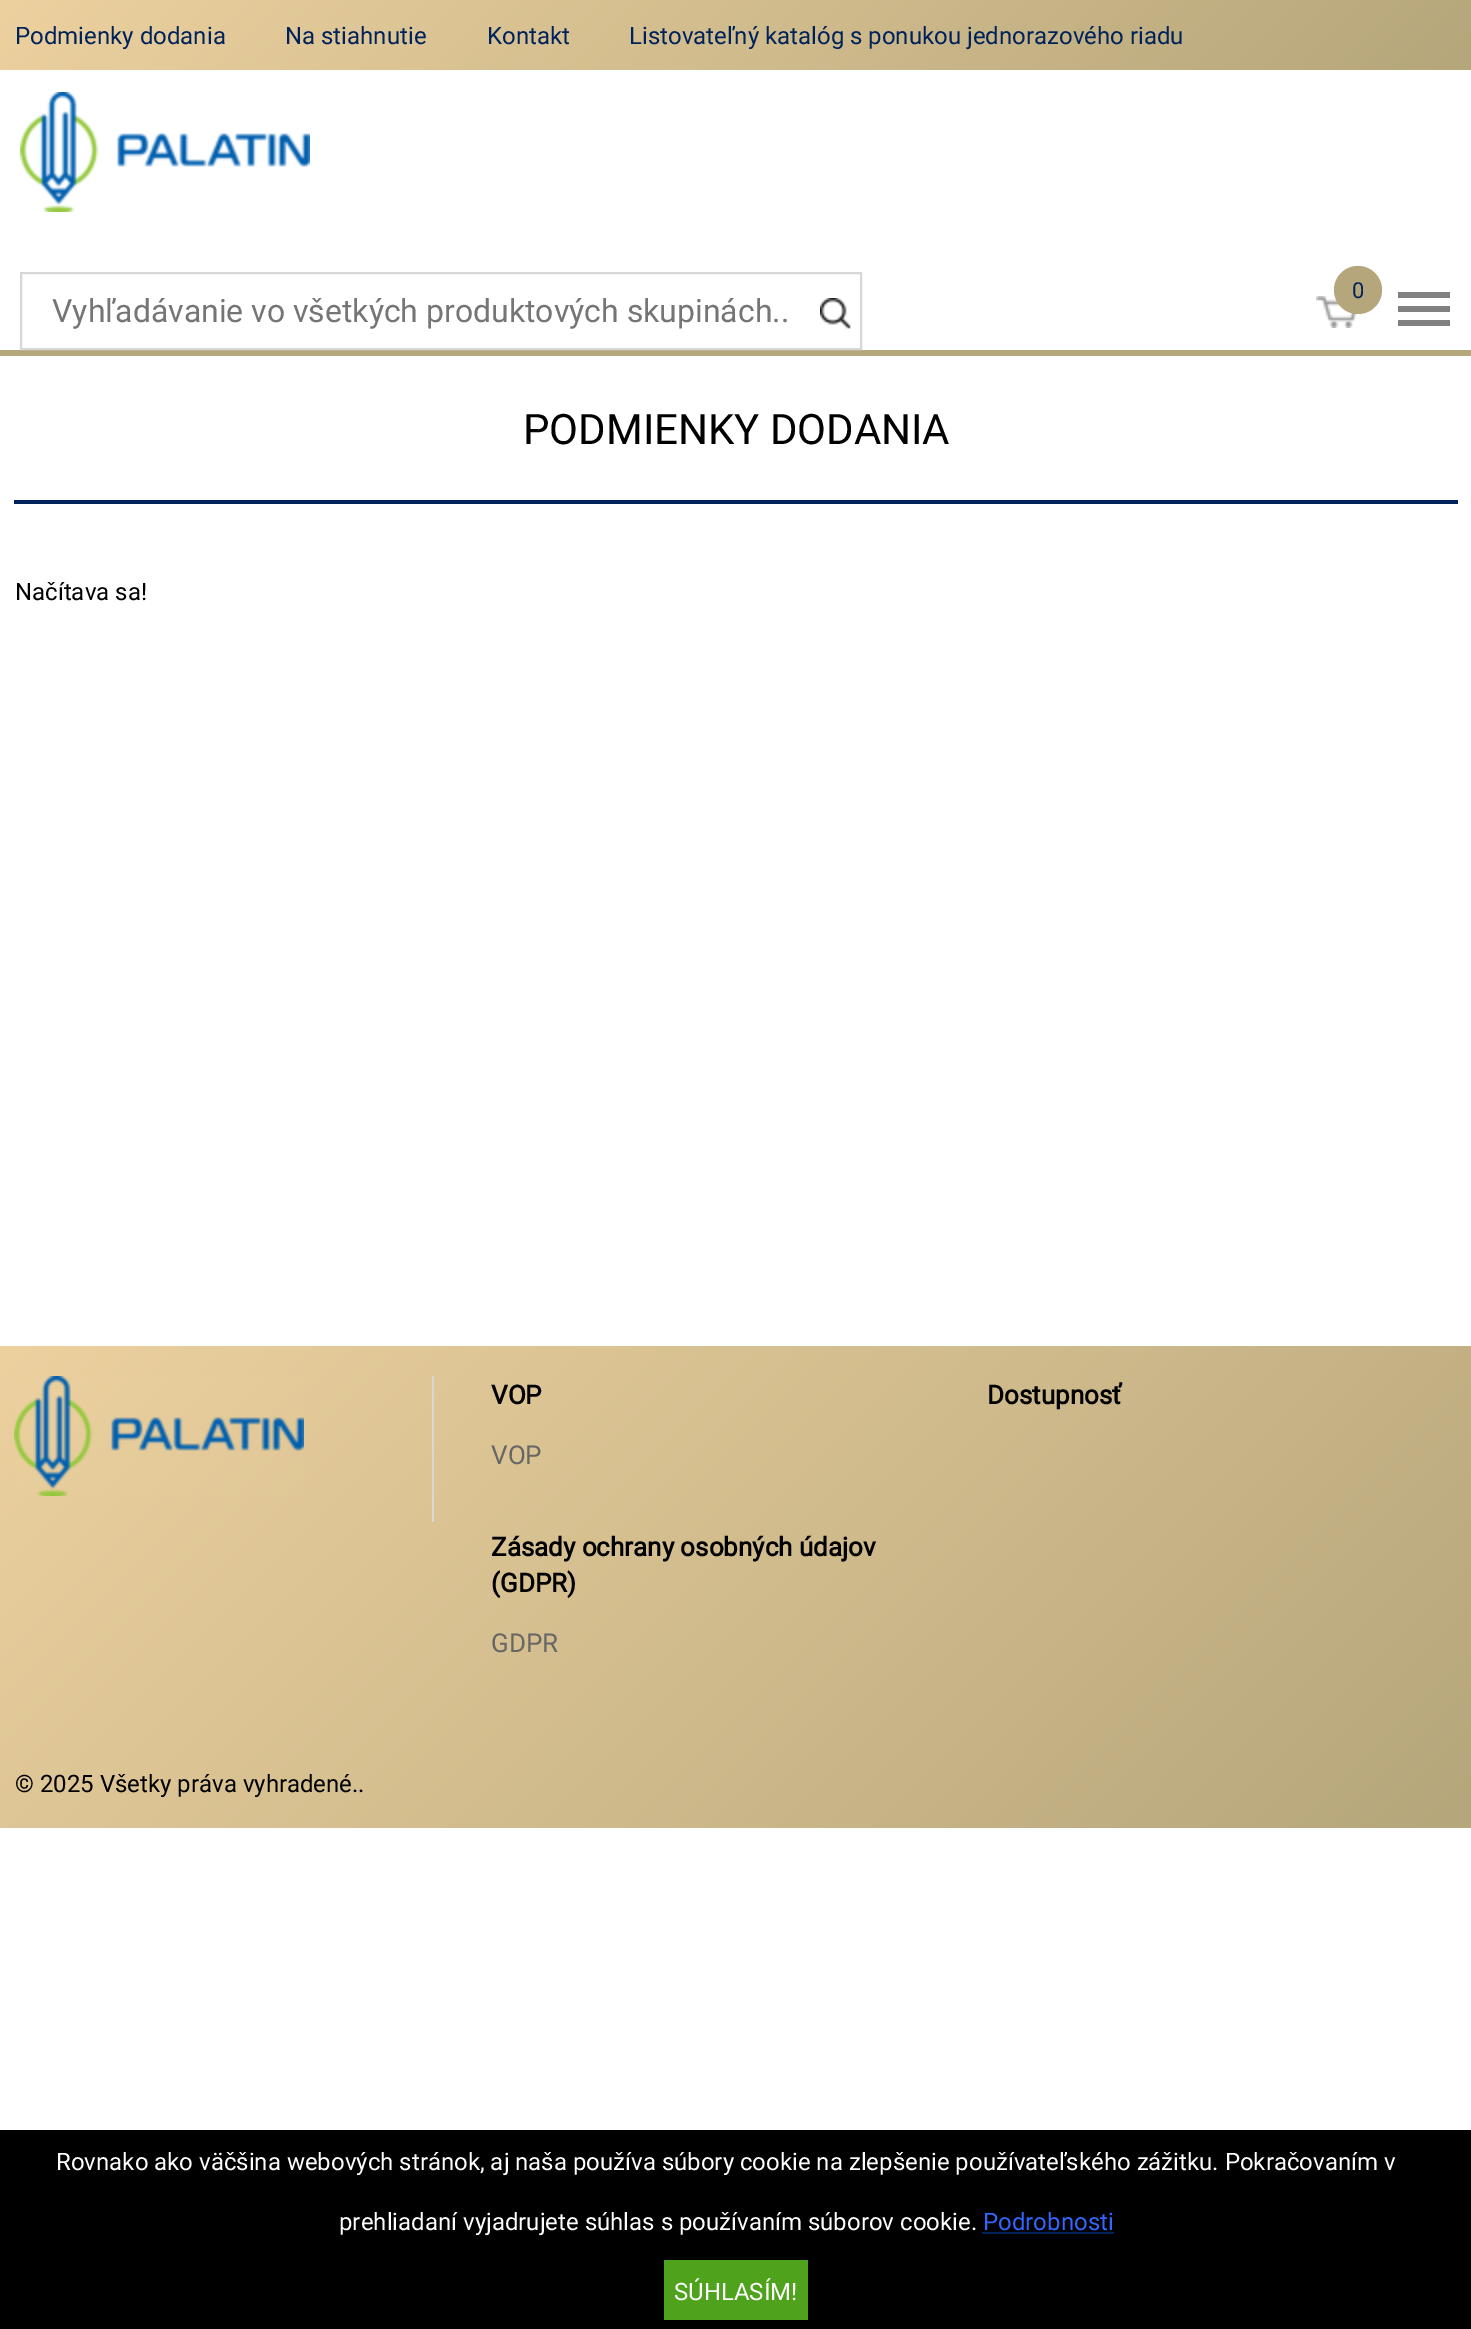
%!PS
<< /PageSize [1471 2329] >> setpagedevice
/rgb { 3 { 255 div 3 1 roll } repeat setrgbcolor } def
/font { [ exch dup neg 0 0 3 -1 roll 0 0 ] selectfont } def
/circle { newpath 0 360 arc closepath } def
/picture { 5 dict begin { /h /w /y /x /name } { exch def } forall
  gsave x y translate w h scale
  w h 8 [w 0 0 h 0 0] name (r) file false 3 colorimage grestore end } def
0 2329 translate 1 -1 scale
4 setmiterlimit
255 255 255 rgb
0 0 1471 2329 rectfill
gsave 0 0 moveto 1471 0 lineto 1471 70 lineto 0 70 lineto closepath clip newpath
<< /ShadingType 2 /ColorSpace /DeviceRGB /Coords [351 -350 1122 420] /Extend [true true] /Function << /FunctionType 2 /Domain [0 1] /C0 [0.929 0.82 0.624] /C1 [0.71 0.651 0.482] /N 1 >> >> shfill grestore
181 166 123 rgb
0 350 1471 6 rectfill
(img/1.rgb) 20 92 290 120 picture
215 215 215 rgb
2 setlinewidth
21 273 840 76 rectstroke
(img/2.rgb) 820 298 31 31 picture
(img/3.rgb) 1316 296 41 32 picture
181 166 123 rgb
1358 290 24 circle fill
[
  [1398 292 52 6 128 128 128]
  [1398 306 52 6 128 128 128]
  [1398 320 52 6 128 128 128]
  [14 500 1444 4 0 34 90]
] { aload pop rgb rectfill } forall
gsave 0 1346 moveto 1471 1346 lineto 1471 1828 lineto 0 1828 lineto closepath clip newpath
<< /ShadingType 2 /ColorSpace /DeviceRGB /Coords [247 1099 1225 2076] /Extend [true true] /Function << /FunctionType 2 /Domain [0 1] /C0 [0.929 0.82 0.624] /C1 [0.71 0.651 0.482] /N 1 >> >> shfill grestore
215 215 215 rgb
432 1376 2 146 rectfill
(img/4.rgb) 14 1376 290 120 picture
[
  [0 2130 1471 199 0 0 0]
  [982 2232 132 2 0 34 90]
  [664 2260 144 60 79 163 28]
] { aload pop rgb rectfill } forall
/Roboto-Regular 24 font
0 34 90 rgb
[
  [(Podmienky dodania) 15 44]
  [(Na stiahnutie) 285 44]
  [(Kontakt) 487 44]
  [(Listovateľný katalóg s ponukou jednorazového riadu) 629 44]
] { aload pop moveto show } forall
/Roboto-Regular 32 font
117 117 117 rgb
52 322 moveto (Vyhľadávanie vo všetkých produktových skupinách..) show
/Roboto-Regular 22 font
0 34 90 rgb
1352 298 moveto (0) show
/Roboto-Regular 42 font
0 0 0 rgb
523 444 moveto (PODMIENKY DODANIA) show
/Roboto-Regular 24 font
15 600 moveto (Načítava sa!) show
/Roboto-Bold 26 font
491 1404 moveto (VOP) show
/Roboto-Regular 26 font
102 102 102 rgb
491 1464 moveto (VOP) show
/Roboto-Bold 26 font
0 0 0 rgb
[
  [(Dostupnosť) 987 1404]
  [(Zásady ochrany osobných údajov) 491 1556]
  [(\(GDPR\)) 491 1592]
] { aload pop moveto show } forall
/Roboto-Regular 26 font
102 102 102 rgb
491 1652 moveto (GDPR) show
/Roboto-Regular 24 font
0 0 0 rgb
15 1792 moveto (© 2025 Všetky práva vyhradené..) show
255 255 255 rgb
56 2170 moveto (Rovnako ako väčšina webových stránok, aj naša používa súbory cookie na zlepšenie používateľského zážitku. Pokračovaním v) show
339 2230 moveto (prehliadaní vyjadrujete súhlas s používaním súborov cookie.) show
51 102 255 rgb
983 2230 moveto (Podrobnosti) show
255 255 255 rgb
674 2300 moveto (SÚHLASÍM!) show
showpage
